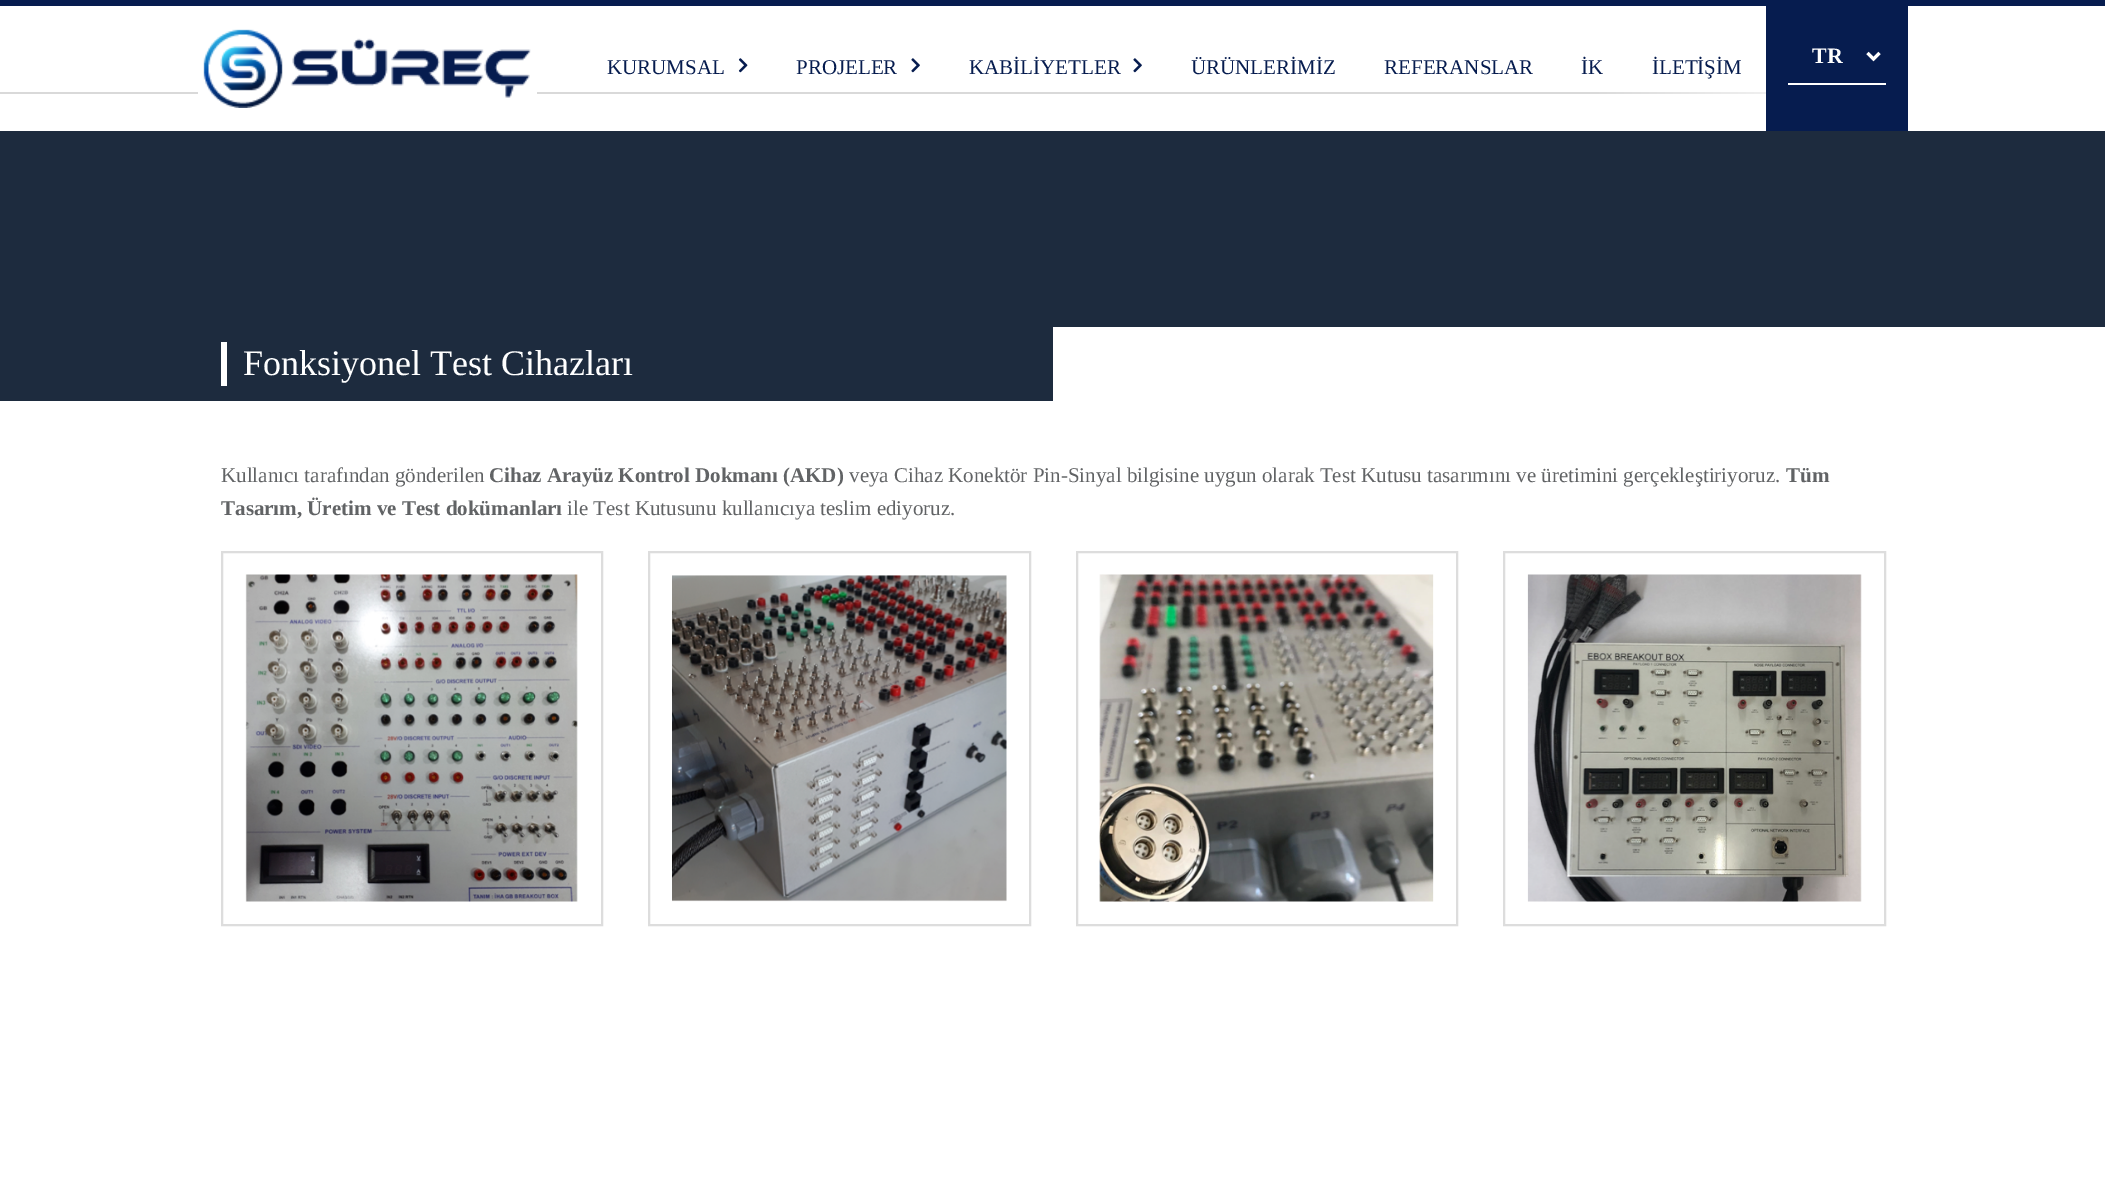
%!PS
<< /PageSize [2105 1199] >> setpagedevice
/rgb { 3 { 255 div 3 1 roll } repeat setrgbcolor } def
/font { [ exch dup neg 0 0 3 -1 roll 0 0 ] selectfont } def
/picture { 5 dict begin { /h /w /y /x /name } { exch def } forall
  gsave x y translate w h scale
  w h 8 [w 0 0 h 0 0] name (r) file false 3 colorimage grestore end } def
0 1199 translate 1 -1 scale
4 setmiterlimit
255 255 255 rgb
0 0 2105 1199 rectfill
6 28 79 rgb
0 0 2105 6 rectfill
gsave 0 92 moveto 1875 92 lineto 1875 94 lineto 0 94 lineto closepath clip newpath
<< /ShadingType 2 /ColorSpace /DeviceRGB /Coords [0 93 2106 93] /Extend [true true] /Function << /FunctionType 3 /Domain [0 1] /Functions [<< /FunctionType 2 /Domain [0 1] /C0 [0.851 0.851 0.851] /C1 [0.851 0.851 0.851] /N 1 >> << /FunctionType 2 /Domain [0 1] /C0 [0.851 0.851 0.851] /C1 [1 1 1] /N 1 >> << /FunctionType 2 /Domain [0 1] /C0 [1 1 1] /C1 [1 1 1] /N 1 >>] /Bounds [0.75 0.9] /Encode [0 1 0 1 0 1] >> >> shfill grestore
255 255 255 rgb
198 92 339 2 rectfill
(img/1.rgb) 203 29 328 79 picture
(img/2.rgb) 738 58 10 15 picture
(img/3.rgb) 911 58 9 15 picture
(img/3.rgb) 1133 58 9 15 picture
6 28 79 rgb
1766 6 142 125 rectfill
255 255 255 rgb
1788 83 98 2 rectfill
3 setlinewidth
1867.5 53 moveto 1873.5 59 lineto 1879.5 53 lineto stroke
[
  [0 131 2105 270 29 43 62]
  [221 342 6 44 255 255 255]
  [1053 327 1052 74 255 255 255]
] { aload pop rgb rectfill } forall
221 221 221 rgb
2 setlinewidth
222 552 380 373 rectstroke
(img/4.rgb) 245 574 333 328 picture
649 552 381 373 rectstroke
(img/5.rgb) 672 575 335 327 picture
1077 552 380 373 rectstroke
(img/6.rgb) 1099 574 335 328 picture
1504 552 381 373 rectstroke
(img/7.rgb) 1527 574 335 328 picture
/LiberationSerif-Regular 21 font
6 28 79 rgb
[
  [(KURUMSAL) 607 74]
  [(PROJELER) 796 74]
  [(KABİLİYETLER) 969 74]
  [(ÜRÜNLERİMİZ) 1191 74]
  [(REFERANSLAR) 1384 74]
  [(İK) 1581 74]
  [(İLETİŞİM) 1652 74]
] { aload pop moveto show } forall
/LiberationSerif-Bold 22 font
255 255 255 rgb
1812 63 moveto (TR) show
/LiberationSerif-Regular 36 font
243 375 moveto (Fonksiyonel Test Cihazları) show
/LiberationSerif-Regular 21 font
97 99 101 rgb
221 482 moveto (Kullanıcı tarafından gönderilen) show
/LiberationSerif-Bold 21 font
489 482 moveto (Cihaz Arayüz Kontrol Dokmanı \(AKD\)) show
/LiberationSerif-Regular 21 font
849 482 moveto (veya Cihaz Konektör Pin-Sinyal bilgisine uygun olarak Test Kutusu tasarımını ve üretimini gerçekleştiriyoruz.) show
/LiberationSerif-Bold 21 font
1786 482 moveto (Tüm) show
221 515 moveto (Tasarım, Üretim ve Test dokümanları) show
/LiberationSerif-Regular 21 font
567 515 moveto (ile Test Kutusunu kullanıcıya teslim ediyoruz.) show
showpage
